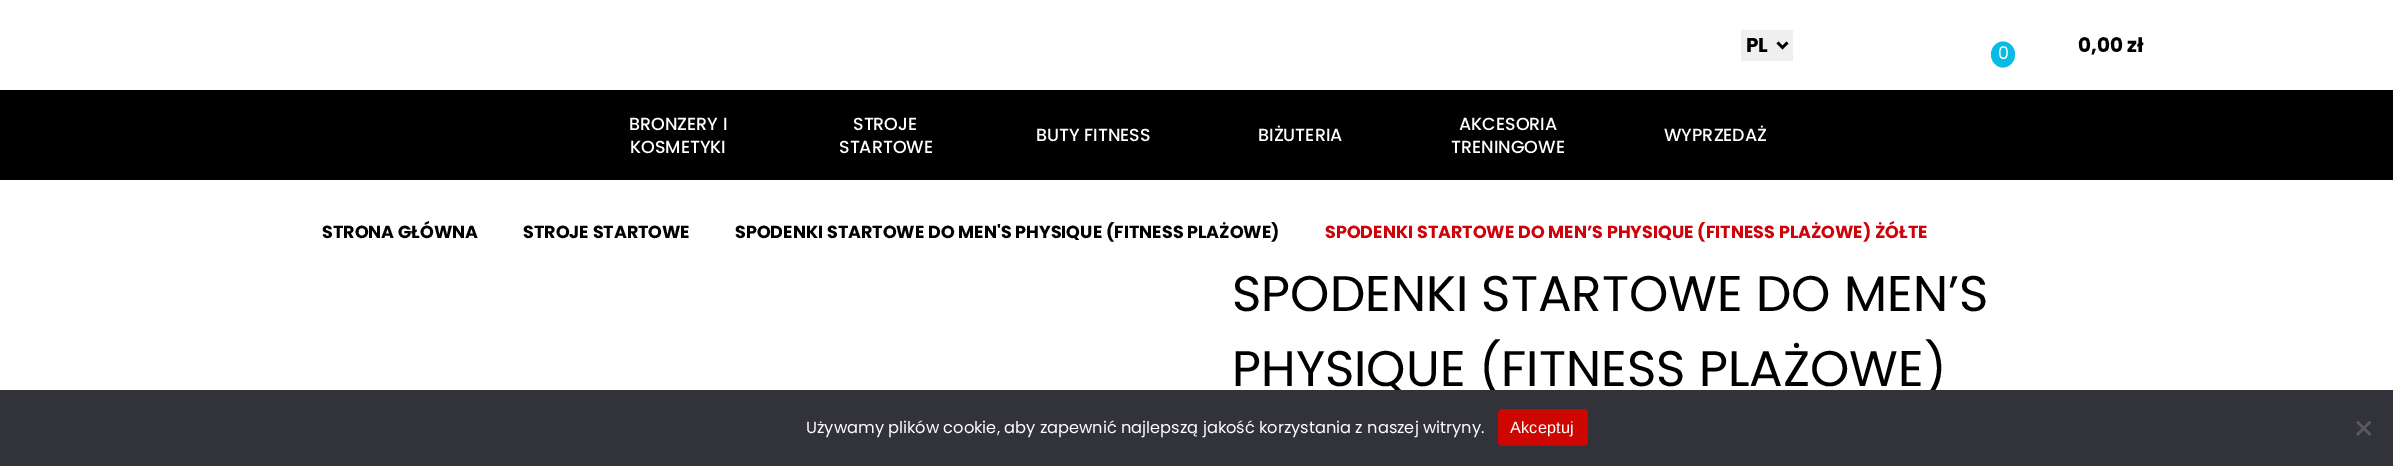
%!PS
<< /PageSize [2393 466] >> setpagedevice
/rgb { 3 { 255 div 3 1 roll } repeat setrgbcolor } def
/font { [ exch dup neg 0 0 3 -1 roll 0 0 ] selectfont } def
/roundrect { 5 dict begin { /r /h /w /y /x } { exch def } forall
  x r add y moveto x w add y 2 copy h add r arct x w add y h add x 1 index r arct
  x y h add x y r arct x y 2 copy exch w add exch r arct closepath end } def
0 466 translate 1 -1 scale
4 setmiterlimit
255 255 255 rgb
0 0 2393 466 rectfill
239 239 239 rgb
1741 30 52 31 rectfill
0 0 0 rgb
2.5 setlinewidth
1777.5 42.5 moveto 1782.5 47.5 lineto 1787.5 42.5 lineto stroke
8 186 228 rgb
2003 41.5 moveto 2009.5 41.5 2015 47.5 2015 54.5 curveto 2015 61.5 2009.5 67.5 2003 67.5 curveto 1996.5 67.5 1991 61.5 1991 54.5 curveto 1991 47.5 1996.5 41.5 2003 41.5 curveto closepath fill
0 0 0 rgb
0 90 2393 90 rectfill
/Poppins-Bold 20 font
1746 52 moveto (PL) show
/Poppins-Regular 17.5 font
255 255 255 rgb
1998 59 moveto (0) show
/Poppins-Bold 20 font
0 0 0 rgb
2078 52 moveto (0,00 zł) show
/Poppins-Medium 17.5 font
255 255 255 rgb
[
  [(BRONZERY I) 629 130]
  [(KOSMETYKI) 630 153]
  [(STROJE) 853 130]
  [(STARTOWE) 839 153]
  [(BUTY FITNESS) 1036 141]
  [(BIŻUTERIA) 1258 141]
  [(AKCESORIA) 1459 130]
  [(TRENINGOWE) 1451 153]
  [(WYPRZEDAŻ) 1664 141]
] { aload pop moveto show } forall
/Poppins-Bold 17.5 font
0 0 0 rgb
[
  [(STRONA GŁÓWNA) 322 238]
  [(STROJE STARTOWE) 523 238]
  [(SPODENKI STARTOWE DO MEN'S PHYSIQUE \(FITNESS PLAŻOWE\)) 735 238]
] { aload pop moveto show } forall
206 3 10 rgb
1325 238 moveto (SPODENKI STARTOWE DO MEN’S PHYSIQUE \(FITNESS PLAŻOWE\) ŻÓŁTE) show
/Poppins-Regular 50 font
0 0 0 rgb
1232 311 moveto (SPODENKI STARTOWE DO MEN’S) show
1232 386 moveto (PHYSIQUE \(FITNESS PLAŻOWE\)) show
50 50 58 rgb
0 390 2393 76 rectfill
/Poppins-Regular 16.25 font
255 255 255 rgb
806 433 moveto (Używamy plików cookie, aby zapewnić najlepszą jakość korzystania z naszej witryny.) show
206 6 0 rgb
1498 409 90 37 4 roundrect fill
/LiberationSans-Regular 16.25 font
255 255 255 rgb
1510 433 moveto 0.25 0 (Akceptuj) ashow
89 89 93 rgb
2369.5 421 moveto 2371.5 422.5 lineto 2358 436 lineto 2356 434 lineto closepath fill
2356 422.5 moveto 2358 421 lineto 2371.5 434 lineto 2369.5 436 lineto closepath fill
showpage
